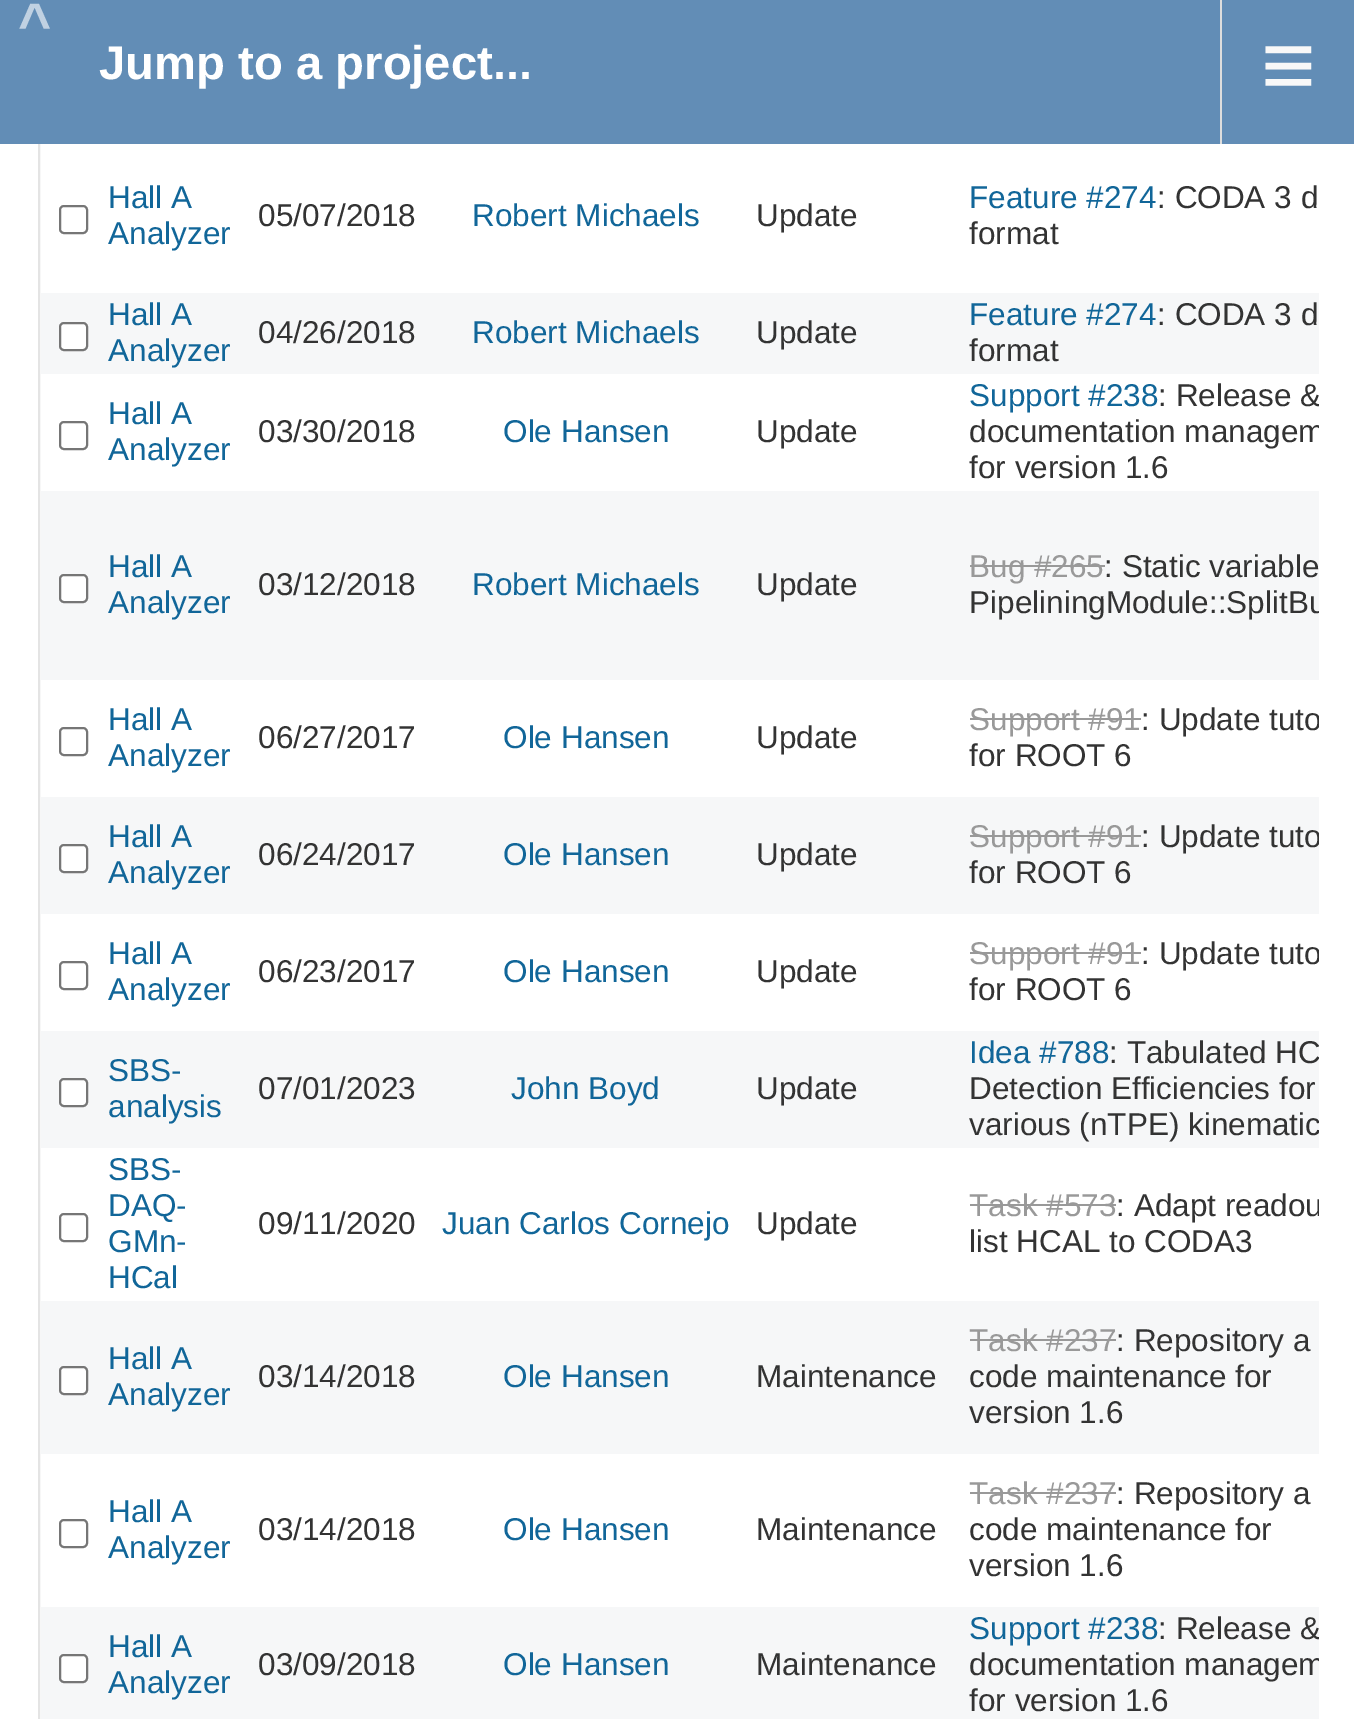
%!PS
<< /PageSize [1354 1719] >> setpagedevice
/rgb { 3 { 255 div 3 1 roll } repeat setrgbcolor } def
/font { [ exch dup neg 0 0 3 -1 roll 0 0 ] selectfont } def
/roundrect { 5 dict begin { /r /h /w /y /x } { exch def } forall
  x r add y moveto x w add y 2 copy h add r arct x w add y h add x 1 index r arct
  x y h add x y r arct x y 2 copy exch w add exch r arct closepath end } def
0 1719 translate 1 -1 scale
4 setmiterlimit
255 255 255 rgb
0 0 1354 1719 rectfill
228 228 228 rgb
2 setlinewidth
39 -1 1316 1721 rectstroke
98 141 182 rgb
0 0 1354 144 rectfill
221 221 221 rgb
1220 0 2 144 rectfill
118 118 118 rgb
60 206 27 27 4 roundrect stroke
246 247 248 rgb
41 293 1278 81 rectfill
255 255 255 rgb
60 323 27 27 4 roundrect gsave fill grestore
118 118 118 rgb
stroke
60 422 27 27 4 roundrect stroke
246 247 248 rgb
41 491 1278 189 rectfill
255 255 255 rgb
60 575 27 27 4 roundrect gsave fill grestore
118 118 118 rgb
stroke
153 153 153 rgb
970 565 135 2 rectfill
118 118 118 rgb
60 728 27 27 4 roundrect stroke
153 153 153 rgb
970 718 171 2 rectfill
246 247 248 rgb
41 797 1278 117 rectfill
255 255 255 rgb
60 845 27 27 4 roundrect gsave fill grestore
118 118 118 rgb
stroke
153 153 153 rgb
970 835 171 2 rectfill
118 118 118 rgb
60 962 27 27 4 roundrect stroke
153 153 153 rgb
970 952 171 2 rectfill
246 247 248 rgb
41 1031 1278 117 rectfill
255 255 255 rgb
60 1079 27 27 4 roundrect gsave fill grestore
118 118 118 rgb
stroke
60 1214 27 27 4 roundrect stroke
153 153 153 rgb
970 1204 146 2 rectfill
246 247 248 rgb
41 1301 1278 153 rectfill
255 255 255 rgb
60 1367 27 27 4 roundrect gsave fill grestore
118 118 118 rgb
stroke
153 153 153 rgb
970 1339 146 2 rectfill
118 118 118 rgb
60 1520 27 27 4 roundrect stroke
153 153 153 rgb
970 1492 146 2 rectfill
246 247 248 rgb
41 1607 1278 112 rectfill
255 255 255 rgb
60 1655 27 27 4 roundrect gsave fill grestore
118 118 118 rgb
stroke
/LiberationSans-Bold 57 font
192 209 226 rgb
18 43 moveto 8 0 (^) ashow
/LiberationSans-Bold 47.25 font
255 255 255 rgb
99 79 moveto (Jump to a project...) show
/LiberationSans-Regular 94 font
248 248 248 rgb
1261 97 moveto (≡) show
/LiberationSans-Regular 31.5 font
17 102 153 rgb
108 208 moveto (Hall A) show
108 244 moveto (Analyzer) show
51 51 51 rgb
258 226 moveto (05/07/2018) show
17 102 153 rgb
472 226 moveto (Robert Michaels) show
51 51 51 rgb
756 226 moveto (Update) show
17 102 153 rgb
969 208 moveto (Feature #274) show
51 51 51 rgb
1157 208 moveto (: CODA 3 d) show
969 244 moveto (format) show
17 102 153 rgb
108 325 moveto (Hall A) show
108 361 moveto (Analyzer) show
51 51 51 rgb
258 343 moveto (04/26/2018) show
17 102 153 rgb
472 343 moveto (Robert Michaels) show
51 51 51 rgb
756 343 moveto (Update) show
17 102 153 rgb
969 325 moveto (Feature #274) show
51 51 51 rgb
1157 325 moveto (: CODA 3 d) show
969 361 moveto (format) show
17 102 153 rgb
108 424 moveto (Hall A) show
108 460 moveto (Analyzer) show
51 51 51 rgb
258 442 moveto (03/30/2018) show
17 102 153 rgb
503 442 moveto (Ole Hansen) show
51 51 51 rgb
756 442 moveto (Update) show
17 102 153 rgb
969 406 moveto (Support #238) show
gsave
36 0 1283 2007 rectclip
51 51 51 rgb
1158 406 moveto (: Release &) show
969 442 moveto (documentation managem) show
grestore
51 51 51 rgb
969 478 moveto (for version 1.6) show
17 102 153 rgb
108 577 moveto (Hall A) show
108 613 moveto (Analyzer) show
51 51 51 rgb
258 595 moveto (03/12/2018) show
17 102 153 rgb
472 595 moveto (Robert Michaels) show
51 51 51 rgb
756 595 moveto (Update) show
153 153 153 rgb
969 577 moveto (Bug #265) show
51 51 51 rgb
1104 577 moveto (: Static variable) show
gsave
36 0 1283 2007 rectclip
969 613 moveto (PipeliningModule::SplitBu) show
grestore
17 102 153 rgb
108 730 moveto (Hall A) show
108 766 moveto (Analyzer) show
51 51 51 rgb
258 748 moveto (06/27/2017) show
17 102 153 rgb
503 748 moveto (Ole Hansen) show
51 51 51 rgb
756 748 moveto (Update) show
153 153 153 rgb
969 730 moveto (Support #91) show
gsave
36 0 1283 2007 rectclip
51 51 51 rgb
1141 730 moveto (: Update tuto) show
grestore
51 51 51 rgb
969 766 moveto (for ROOT 6) show
17 102 153 rgb
108 847 moveto (Hall A) show
108 883 moveto (Analyzer) show
51 51 51 rgb
258 865 moveto (06/24/2017) show
17 102 153 rgb
503 865 moveto (Ole Hansen) show
51 51 51 rgb
756 865 moveto (Update) show
153 153 153 rgb
969 847 moveto (Support #91) show
gsave
36 0 1283 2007 rectclip
51 51 51 rgb
1141 847 moveto (: Update tuto) show
grestore
51 51 51 rgb
969 883 moveto (for ROOT 6) show
17 102 153 rgb
108 964 moveto (Hall A) show
108 1000 moveto (Analyzer) show
51 51 51 rgb
258 982 moveto (06/23/2017) show
17 102 153 rgb
503 982 moveto (Ole Hansen) show
51 51 51 rgb
756 982 moveto (Update) show
153 153 153 rgb
969 964 moveto (Support #91) show
gsave
36 0 1283 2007 rectclip
51 51 51 rgb
1141 964 moveto (: Update tuto) show
grestore
51 51 51 rgb
969 1000 moveto (for ROOT 6) show
17 102 153 rgb
108 1081 moveto (SBS-) show
108 1117 moveto (analysis) show
51 51 51 rgb
258 1099 moveto (07/01/2023) show
17 102 153 rgb
511 1099 moveto (John Boyd) show
51 51 51 rgb
756 1099 moveto (Update) show
17 102 153 rgb
969 1063 moveto (Idea #788) show
gsave
36 0 1283 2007 rectclip
51 51 51 rgb
1109 1063 moveto (: Tabulated HC) show
grestore
51 51 51 rgb
969 1099 moveto (Detection Efficiencies for) show
gsave
36 0 1283 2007 rectclip
969 1135 moveto (various \(nTPE\) kinematic) show
grestore
17 102 153 rgb
[
  [(SBS-) 108 1180]
  [(DAQ-) 108 1216]
  [(GMn-) 108 1252]
  [(HCal) 108 1288]
] { aload pop moveto show } forall
51 51 51 rgb
258 1234 moveto (09/11/2020) show
17 102 153 rgb
442 1234 moveto (Juan Carlos Cornejo) show
51 51 51 rgb
756 1234 moveto (Update) show
153 153 153 rgb
969 1216 moveto (Task #573) show
gsave
36 0 1283 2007 rectclip
51 51 51 rgb
1116 1216 moveto (: Adapt readou) show
grestore
51 51 51 rgb
969 1252 moveto (list HCAL to CODA3) show
17 102 153 rgb
108 1369 moveto (Hall A) show
108 1405 moveto (Analyzer) show
51 51 51 rgb
258 1387 moveto (03/14/2018) show
17 102 153 rgb
503 1387 moveto (Ole Hansen) show
51 51 51 rgb
756 1387 moveto (Maintenance) show
153 153 153 rgb
969 1351 moveto (Task #237) show
51 51 51 rgb
[
  [(: Repository a) 1116 1351]
  [(code maintenance for) 969 1387]
  [(version 1.6) 969 1423]
] { aload pop moveto show } forall
17 102 153 rgb
108 1522 moveto (Hall A) show
108 1558 moveto (Analyzer) show
51 51 51 rgb
258 1540 moveto (03/14/2018) show
17 102 153 rgb
503 1540 moveto (Ole Hansen) show
51 51 51 rgb
756 1540 moveto (Maintenance) show
153 153 153 rgb
969 1504 moveto (Task #237) show
51 51 51 rgb
[
  [(: Repository a) 1116 1504]
  [(code maintenance for) 969 1540]
  [(version 1.6) 969 1576]
] { aload pop moveto show } forall
17 102 153 rgb
108 1657 moveto (Hall A) show
108 1693 moveto (Analyzer) show
51 51 51 rgb
258 1675 moveto (03/09/2018) show
17 102 153 rgb
503 1675 moveto (Ole Hansen) show
51 51 51 rgb
756 1675 moveto (Maintenance) show
17 102 153 rgb
969 1639 moveto (Support #238) show
gsave
36 0 1283 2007 rectclip
51 51 51 rgb
1158 1639 moveto (: Release &) show
969 1675 moveto (documentation managem) show
grestore
51 51 51 rgb
969 1711 moveto (for version 1.6) show
showpage
